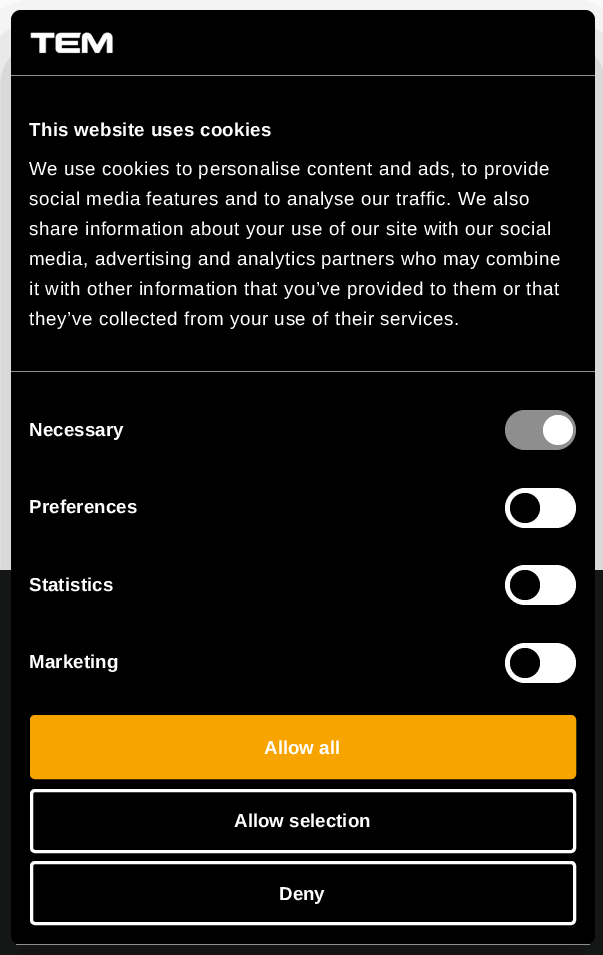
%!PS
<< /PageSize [603 955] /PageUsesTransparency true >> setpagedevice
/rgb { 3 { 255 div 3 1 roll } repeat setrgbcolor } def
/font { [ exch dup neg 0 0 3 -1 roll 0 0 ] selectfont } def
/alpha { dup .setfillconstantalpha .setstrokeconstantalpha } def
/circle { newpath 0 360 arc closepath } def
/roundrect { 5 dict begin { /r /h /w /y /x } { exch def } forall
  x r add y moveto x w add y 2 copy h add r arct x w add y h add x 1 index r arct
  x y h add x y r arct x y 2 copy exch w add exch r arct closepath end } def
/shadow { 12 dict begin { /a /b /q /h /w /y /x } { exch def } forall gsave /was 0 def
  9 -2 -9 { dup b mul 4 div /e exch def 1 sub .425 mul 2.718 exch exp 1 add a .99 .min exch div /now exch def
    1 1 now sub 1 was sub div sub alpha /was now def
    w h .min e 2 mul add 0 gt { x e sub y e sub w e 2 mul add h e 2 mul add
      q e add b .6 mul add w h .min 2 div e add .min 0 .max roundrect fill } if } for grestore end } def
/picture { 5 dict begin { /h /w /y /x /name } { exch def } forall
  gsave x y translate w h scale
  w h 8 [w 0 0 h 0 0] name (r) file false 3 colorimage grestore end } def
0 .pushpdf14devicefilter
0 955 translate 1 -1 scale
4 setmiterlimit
255 255 255 rgb
0 0 603 955 rectfill
24 26 26 rgb
0 570 603 385 rectfill
0 0 0 rgb
11 50 584 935 10 42.5 0.3 shadow
11 10 584 935 10 roundrect fill
142 142 142 rgb
11 75 584 1 rectfill
(img/1.rgb) 30 32 84 22 picture
11 371 584 1 rectfill
505 410 71 40 20 roundrect fill
255 255 255 rgb
558 430 15 circle fill
505 488 71 40 20 roundrect fill
0 0 0 rgb
525 508 15 circle fill
255 255 255 rgb
505 565 71 40 20 roundrect fill
0 0 0 rgb
525 585 15 circle fill
255 255 255 rgb
505 643 71 40 20 roundrect fill
0 0 0 rgb
525 663 15 circle fill
gsave
11 10 584 935 10 roundrect clip newpath
142 142 142 rgb
11 944 584 1 rectfill
grestore
247 164 0 rgb
31.5 716.5 543 61 3.5 roundrect gsave fill grestore
3 setlinewidth
stroke
255 255 255 rgb
31.5 790.5 543 61 3.5 roundrect stroke
31.5 862.5 543 61 3.5 roundrect stroke
/LiberationSans-Bold 18.75 font
29 136 moveto 0.3 0 (This website uses cookies) ashow
/LiberationSans-Regular 18.75 font
29 175 moveto 0.62 0 (We use cookies to personalise content and ads, to provide) ashow
29 205 moveto 0.62 0 (social media features and to analyse our traffic. We also) ashow
29 235 moveto 0.62 0 (share information about your use of our site with our social) ashow
29 265 moveto 0.62 0 (media, advertising and analytics partners who may combine) ashow
29 295 moveto 0.62 0 (it with other information that you’ve provided to them or that) ashow
29 325 moveto 0.62 0 (they’ve collected from your use of their services.) ashow
/LiberationSans-Bold 18.75 font
29 436 moveto 0.1 0 (Necessary) ashow
29 513 moveto 0.1 0 (Preferences) ashow
29 591 moveto 0.1 0 (Statistics) ashow
29 668 moveto 0.1 0 (Marketing) ashow
[
  [(Allow all) 264 754]
  [(Allow selection) 234 827]
  [(Deny) 279 900]
] { aload pop moveto show } forall
.poppdf14devicefilter showpage
